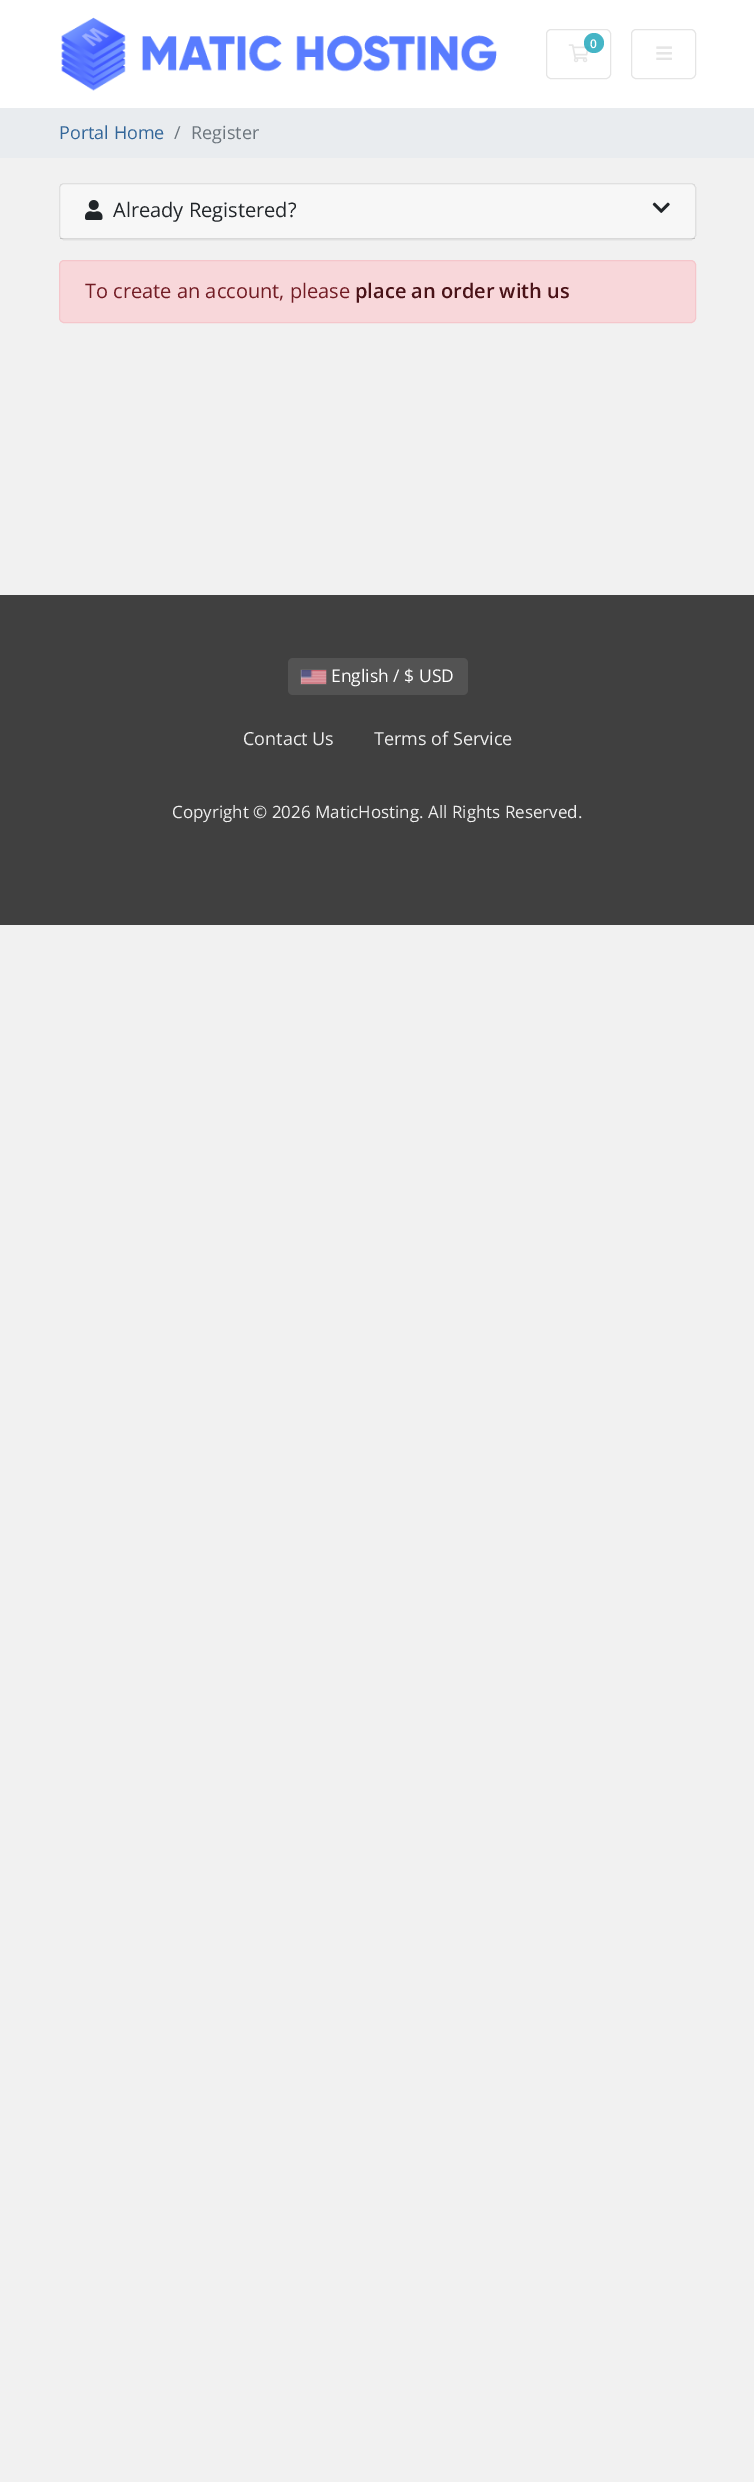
%!PS
<< /PageSize [754 2482] /PageUsesTransparency true >> setpagedevice
/rgb { 3 { 255 div 3 1 roll } repeat setrgbcolor } def
/font { [ exch dup neg 0 0 3 -1 roll 0 0 ] selectfont } def
/alpha { dup .setfillconstantalpha .setstrokeconstantalpha } def
/circle { newpath 0 360 arc closepath } def
/roundrect { 5 dict begin { /r /h /w /y /x } { exch def } forall
  x r add y moveto x w add y 2 copy h add r arct x w add y h add x 1 index r arct
  x y h add x y r arct x y 2 copy exch w add exch r arct closepath end } def
/shadow { 12 dict begin { /a /b /q /h /w /y /x } { exch def } forall gsave /was 0 def
  9 -2 -9 { dup b mul 4 div /e exch def 1 sub .425 mul 2.718 exch exp 1 add a .99 .min exch div /now exch def
    1 1 now sub 1 was sub div sub alpha /was now def
    w h .min e 2 mul add 0 gt { x e sub y e sub w e 2 mul add h e 2 mul add
      q e add b .6 mul add w h .min 2 div e add .min 0 .max roundrect fill } if } for grestore end } def
/picture { 5 dict begin { /h /w /y /x /name } { exch def } forall
  gsave x y translate w h scale
  w h 8 [w 0 0 h 0 0] name (r) file false 3 colorimage grestore end } def
0 .pushpdf14devicefilter
0 2482 translate 1 -1 scale
4 setmiterlimit
241 241 241 rgb
0 0 754 2482 rectfill
255 255 255 rgb
0 0 754 108 rectfill
(img/1.rgb) 61 17 436 74 picture
229 229 229 rgb
546.5 29.5 64 49 4.5 roundrect stroke
(img/2.rgb) 568 44 21 19 picture
0.8 alpha
23 162 184 rgb
594 43 10 circle fill
1 alpha
229 229 229 rgb
631.5 29.5 64 49 4.5 roundrect stroke
(img/3.rgb) 656 46 16 14 picture
233 236 239 rgb
0 108 754 50 rectfill
255 255 255 rgb
59 183 637 57 5 roundrect fill
0.12 alpha
0 0 0 rgb
59.5 183.5 636 56 4.5 roundrect stroke
0.03 alpha
60 184 635 55 rectfill
0.12 alpha
60 238 635 1 rectfill
1 alpha
(img/4.rgb) 85 200 18 20 picture
(img/5.rgb) 652 202 18 11 picture
248 215 218 rgb
59.5 260.5 636 62 4.5 roundrect gsave fill grestore
245 198 203 rgb
stroke
64 64 64 rgb
0 595 754 330 rectfill
83 83 83 rgb
288 658 180 37 5 roundrect fill
136 136 136 rgb
301 670 25 14 0 0.5 1 shadow
219 219 219 rgb
301 670 25 14 rectfill
(img/6.rgb) 301 670 26 14 picture
/OpenSans-SemiBold 12 font
255 255 255 rgb
590 48 moveto (0) show
/OpenSans-Regular 18 font
51 102 153 rgb
59 139 moveto (Portal Home) show
108 117 125 rgb
174 139 moveto (/) show
191 139 moveto (Register) show
/OpenSans-Regular 20 font
33 37 41 rgb
113 217 moveto (Already Registered?) show
114 28 36 rgb
85 298 moveto (To create an account, please) show
/OpenSans-SemiBold 20 font
73 18 23 rgb
355 298 moveto (place an order with us) show
/OpenSans-Regular 17.5 font
255 255 255 rgb
331 682 moveto (English / $ USD) show
/OpenSans-Regular 18 font
238 238 238 rgb
243 745 moveto (Contact Us) show
374 745 moveto (Terms of Service) show
/OpenSans-Regular 17 font
172 818 moveto (Copyright © 2026 MaticHosting. All Rights Reserved.) show
.poppdf14devicefilter showpage
